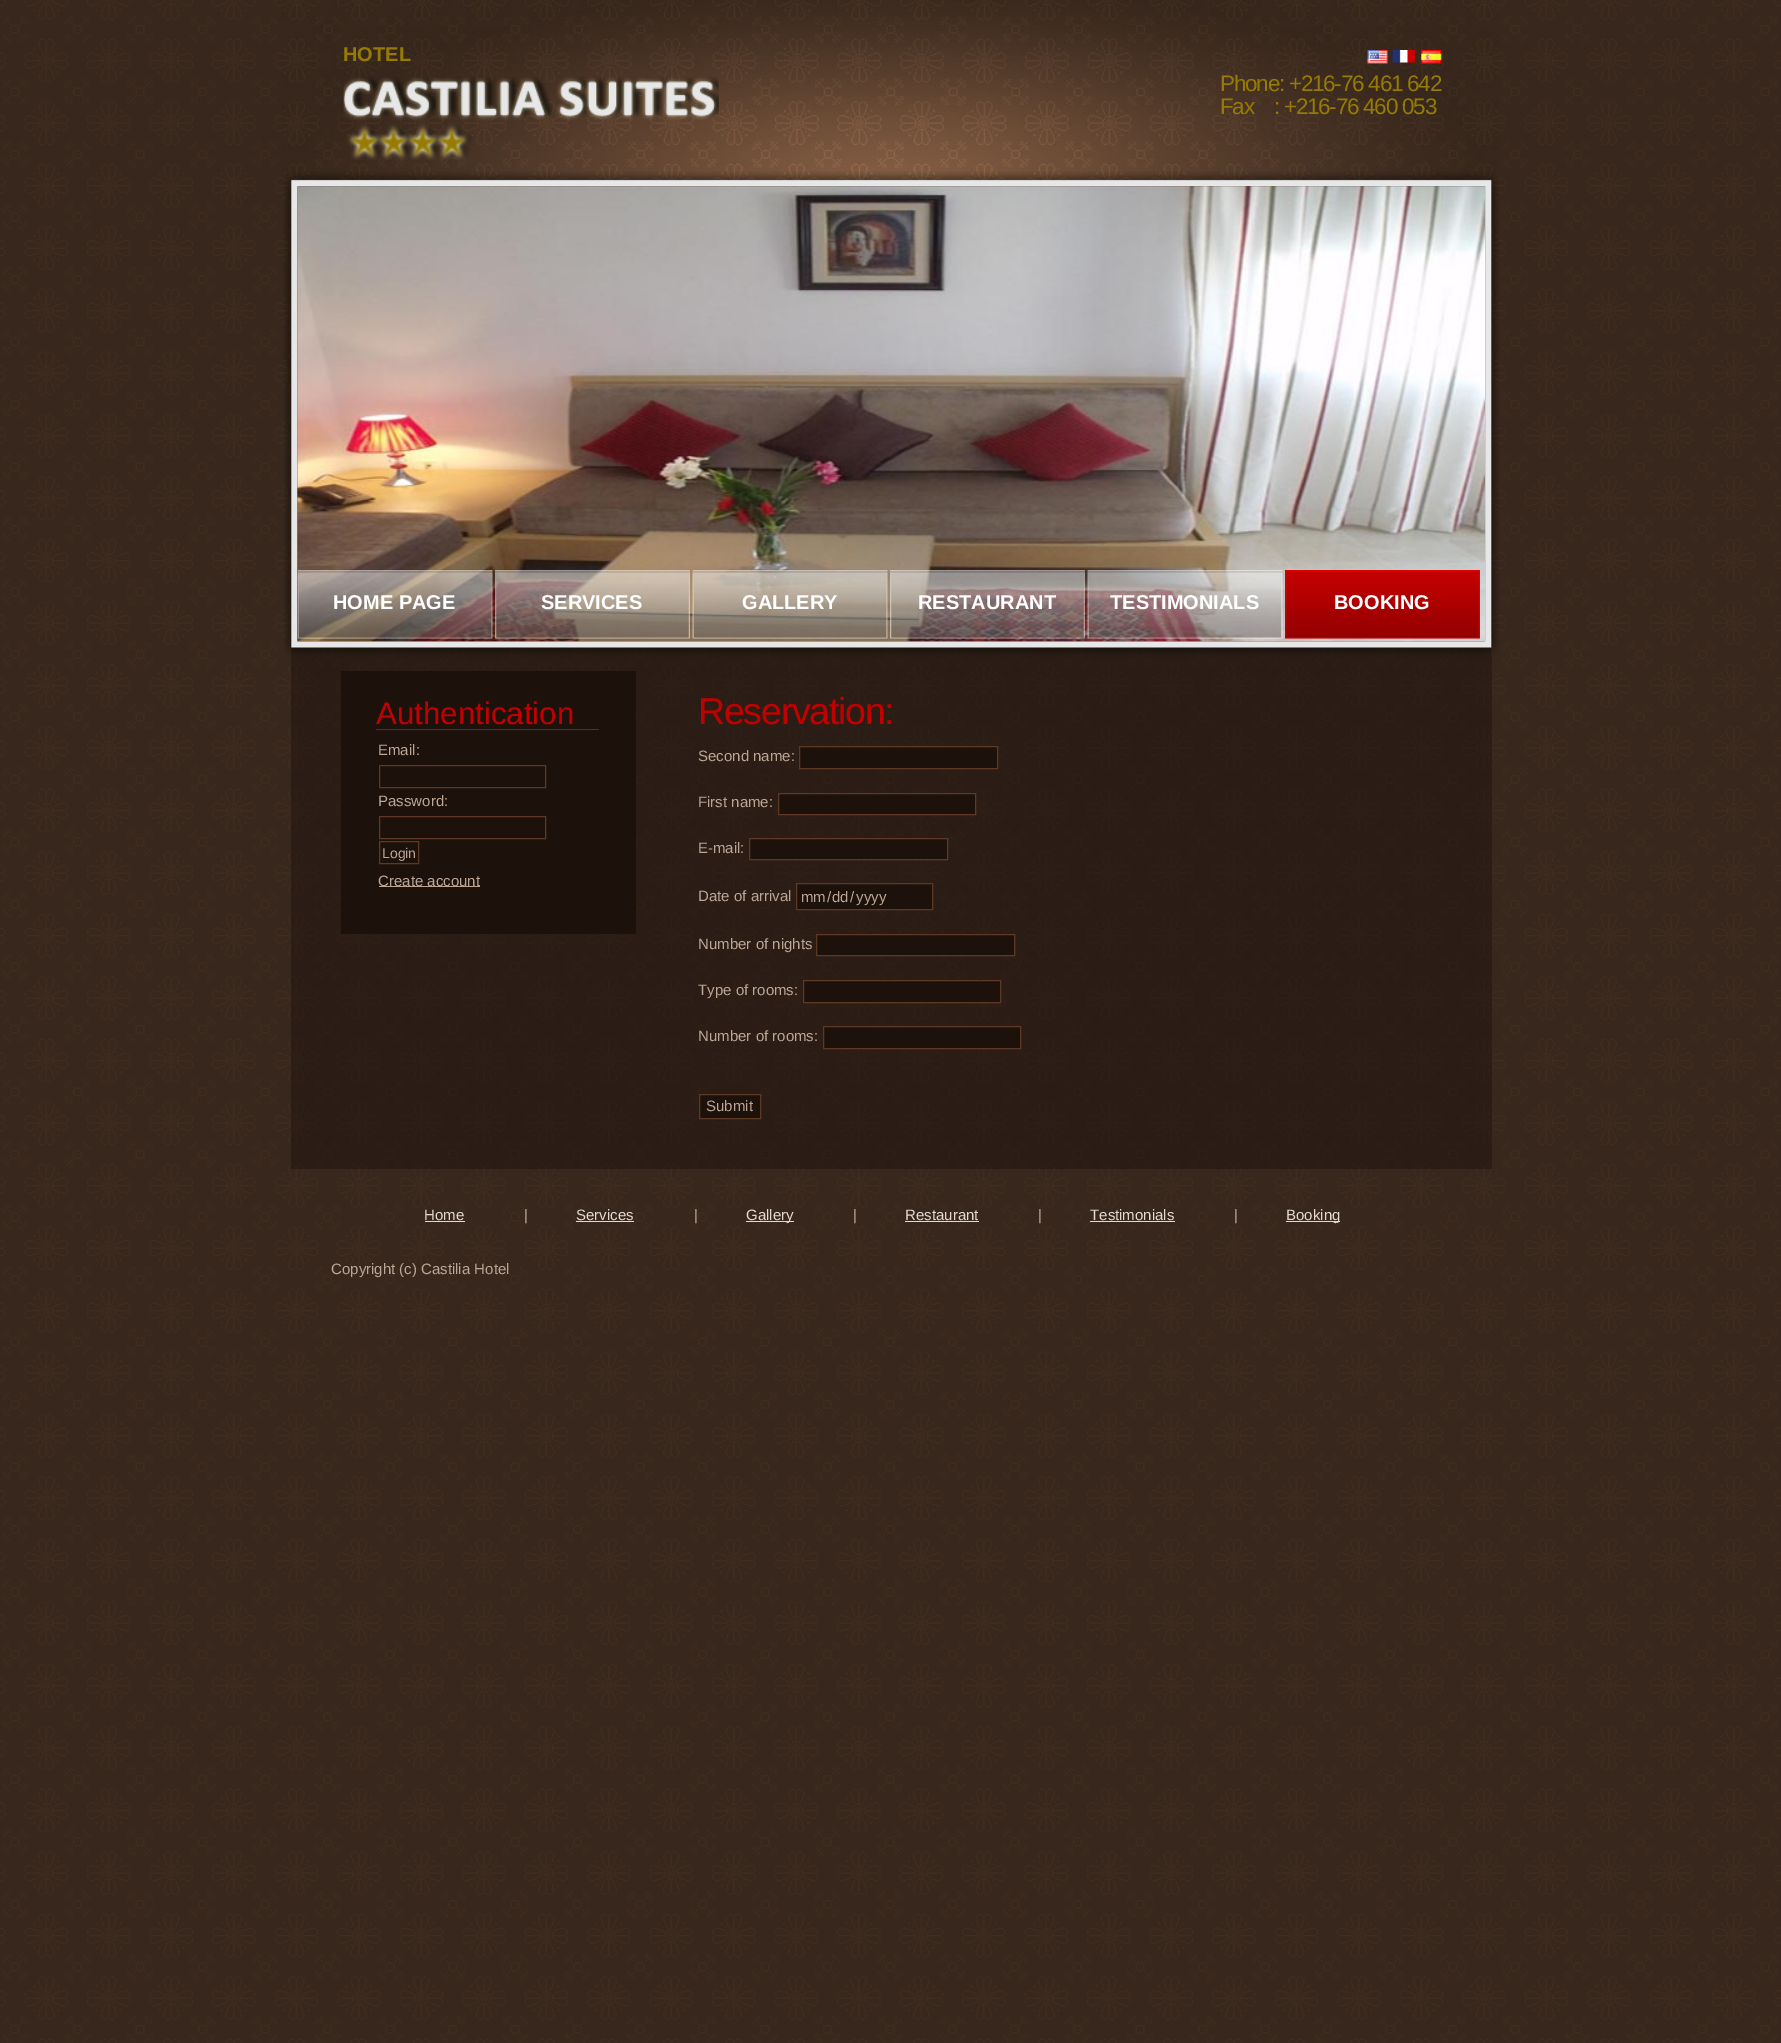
%!PS
<< /PageSize [1781 2043] /PageUsesTransparency true >> setpagedevice
/rgb { 3 { 255 div 3 1 roll } repeat setrgbcolor } def
/font { [ exch dup neg 0 0 3 -1 roll 0 0 ] selectfont } def
/alpha { dup .setfillconstantalpha .setstrokeconstantalpha } def
/picture { 5 dict begin { /h /w /y /x /name } { exch def } forall
  gsave x y translate w h scale
  w h 8 [w 0 0 h 0 0] name (r) file false 3 colorimage grestore end } def
0 .pushpdf14devicefilter
0 2043 translate 1 -1 scale
4 setmiterlimit
255 255 255 rgb
0 0 1781 2043 rectfill
(img/1.rgb) 0 0 1781 2043 picture
(img/2.rgb) 282 0 1216 380 picture
(img/3.rgb) 343 76 376 84 picture
(img/4.rgb) 1367 50 21 14 picture
(img/5.rgb) 1392 50 23 13 picture
(img/6.rgb) 1421 50 21 14 picture
(img/7.rgb) 284 171 1215 487 picture
(img/8.rgb) 297 186 1188 456 picture
(img/9.rgb) 297 570 196 69 picture
(img/10.rgb) 495 570 195 69 picture
(img/11.rgb) 692 570 196 69 picture
(img/12.rgb) 890 570 195 69 picture
(img/13.rgb) 1087 570 196 69 picture
(img/14.rgb) 1285 570 195 69 picture
0.6 alpha
[
  [291 657 1201 512 35 23 17]
] { aload pop rgb rectfill } forall
1 alpha
[
  [341 671 295 263 29 17 11]
  [376 729 223 1 77 53 37]
] { aload pop rgb rectfill } forall
93 56 37 rgb
379.5 765.5 166 22 rectstroke
379.5 816.5 166 22 rectstroke
379.5 841.5 39 22 rectstroke
188 166 149 rgb
379 886 101 1 rectfill
29 17 11 rgb
799.5 746.5 moveto 997.5 746.5 lineto 997.5 768.5 lineto 799.5 768.5 lineto closepath gsave fill grestore
93 56 37 rgb
stroke
29 17 11 rgb
778.5 793.5 moveto 975.5 793.5 lineto 975.5 814.5 lineto 778.5 814.5 lineto closepath gsave fill grestore
93 56 37 rgb
stroke
29 17 11 rgb
749.5 838.5 moveto 947.5 838.5 lineto 947.5 859.5 lineto 749.5 859.5 lineto closepath gsave fill grestore
93 56 37 rgb
stroke
29 17 11 rgb
796.5 883.5 moveto 932.5 883.5 lineto 932.5 909.5 lineto 796.5 909.5 lineto closepath gsave fill grestore
93 56 37 rgb
stroke
29 17 11 rgb
816.5 934.5 moveto 1014.5 934.5 lineto 1014.5 955.5 lineto 816.5 955.5 lineto closepath gsave fill grestore
93 56 37 rgb
stroke
29 17 11 rgb
803.5 980.5 moveto 1000.5 980.5 lineto 1000.5 1002.5 lineto 803.5 1002.5 lineto closepath gsave fill grestore
93 56 37 rgb
stroke
29 17 11 rgb
823.5 1026.5 moveto 1020.5 1026.5 lineto 1020.5 1048.5 lineto 823.5 1048.5 lineto closepath gsave fill grestore
93 56 37 rgb
stroke
29 17 11 rgb
699.5 1094.5 moveto 760.5 1094.5 lineto 760.5 1118.5 lineto 699.5 1118.5 lineto closepath gsave fill grestore
93 56 37 rgb
stroke
[
  [425 1221 40 1 227 218 210]
  [576 1221 58 1 227 218 210]
  [746 1221 48 1 227 218 210]
  [905 1221 74 1 227 218 210]
  [1090 1221 85 1 227 218 210]
  [1286 1221 54 1 227 218 210]
] { aload pop rgb rectfill } forall
/LiberationSans-Bold 20 font
149 123 3 rgb
343 61 moveto (HOTEL) show
/LiberationSans-Regular 22.5 font
1220 91 moveto -1.25 0 (Phone: +216-76 461 642) ashow
1220 114 moveto -1.25 0 (Fax    : +216-76 460 053) ashow
/LiberationSans-Bold 20 font
255 255 255 rgb
[
  [(HOME PAGE) 333 609]
  [(SERVICES) 541 609]
  [(GALLERY) 742 609]
  [(RESTAURANT) 918 609]
  [(TESTIMONIALS) 1110 609]
  [(BOOKING) 1334 609]
] { aload pop moveto show } forall
/LiberationSans-Regular 31.25 font
195 0 0 rgb
376 724 moveto (Authentication) show
/LiberationSans-Regular 15 font
188 166 149 rgb
378 755 moveto (Email:) show
378 806 moveto (Password:) show
/LiberationSans-Regular 14 font
382 858 moveto (Login) show
/LiberationSans-Regular 15 font
378 886 moveto (Create account) show
/LiberationSans-Regular 37.5 font
195 0 0 rgb
698 724 moveto -1.25 0 (Reservation:) ashow
/LiberationSans-Regular 15 font
188 166 149 rgb
[
  [(Second name:) 698 761]
  [(First name:) 698 807]
  [(E-mail:) 698 853]
  [(Date of arrival) 698 901]
  [(mm) 801 902]
  [(/) 827 902]
  [(dd) 832 902]
  [(/) 850 902]
  [(yyyy) 856 902]
  [(Number of nights) 698 949]
  [(Type of rooms:) 698 995]
  [(Number of rooms:) 698 1041]
  [(Submit) 706 1111]
] { aload pop moveto show } forall
227 218 210 rgb
424 1220 moveto (Home) show
188 166 149 rgb
524 1220 moveto (|) show
227 218 210 rgb
576 1220 moveto (Services) show
188 166 149 rgb
694 1220 moveto (|) show
227 218 210 rgb
746 1220 moveto (Gallery) show
188 166 149 rgb
853 1220 moveto (|) show
227 218 210 rgb
905 1220 moveto (Restaurant) show
188 166 149 rgb
1038 1220 moveto (|) show
227 218 210 rgb
1090 1220 moveto (Testimonials) show
188 166 149 rgb
1234 1220 moveto (|) show
227 218 210 rgb
1286 1220 moveto (Booking) show
188 166 149 rgb
331 1274 moveto (Copyright \(c\) Castilia Hotel) show
.poppdf14devicefilter showpage
